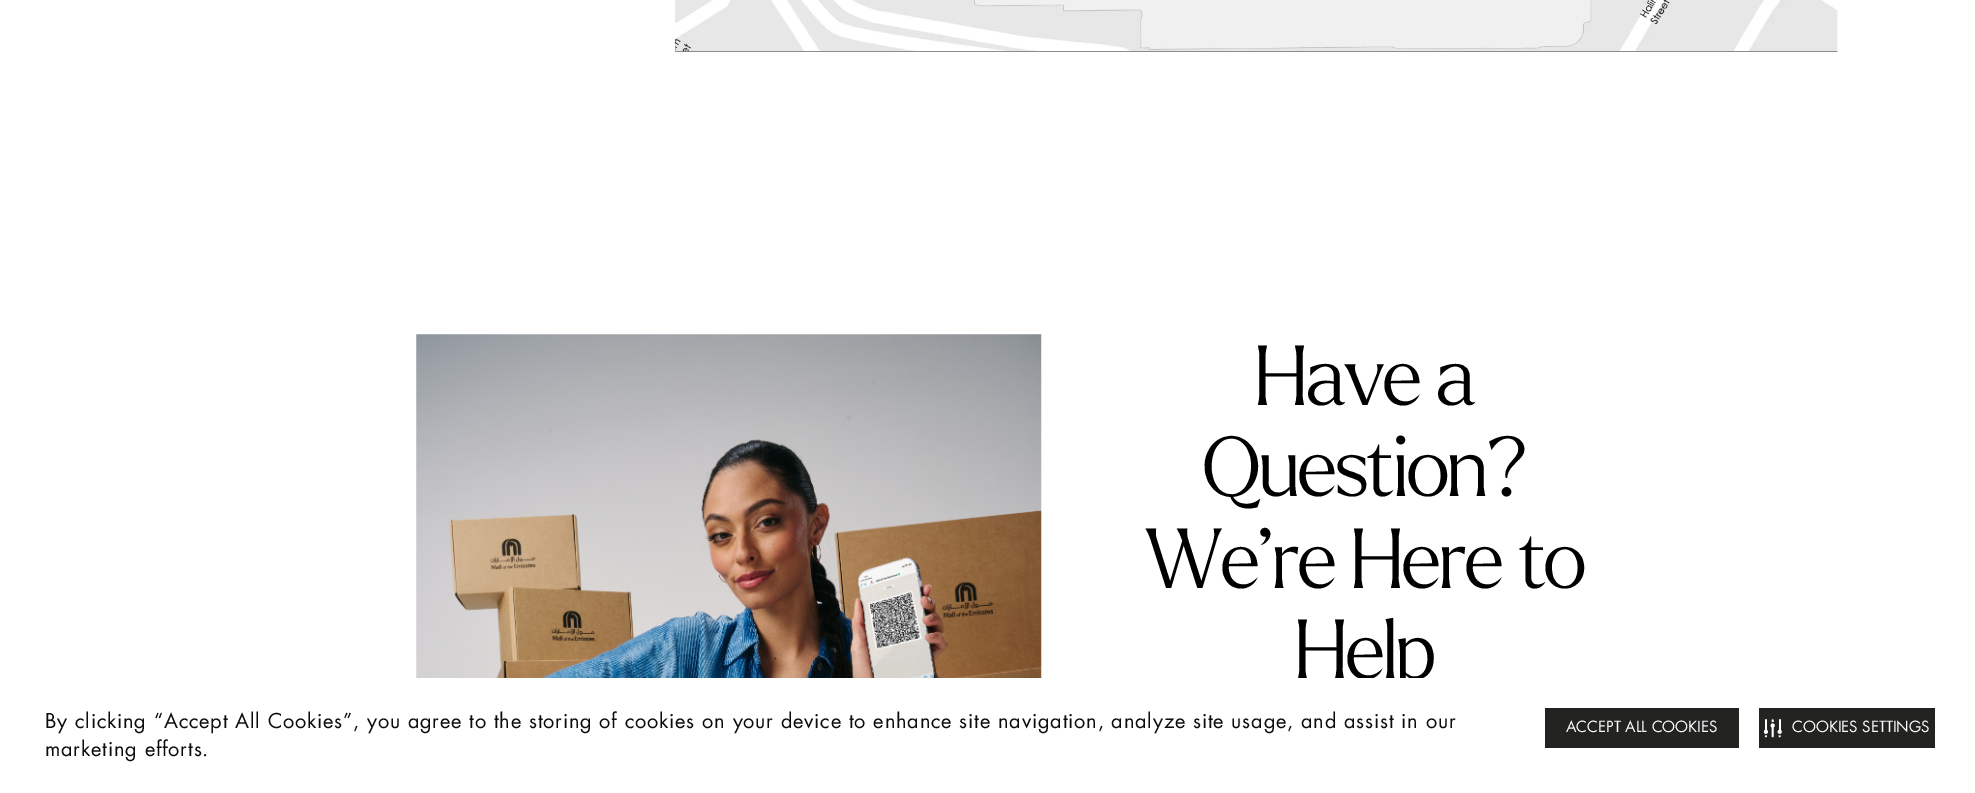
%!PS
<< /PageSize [1975 793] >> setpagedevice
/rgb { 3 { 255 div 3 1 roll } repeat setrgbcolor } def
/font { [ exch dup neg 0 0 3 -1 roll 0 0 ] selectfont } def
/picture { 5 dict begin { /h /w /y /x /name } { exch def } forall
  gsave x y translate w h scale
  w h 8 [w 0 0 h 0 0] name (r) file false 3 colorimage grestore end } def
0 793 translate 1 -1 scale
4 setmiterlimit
255 255 255 rgb
0 0 1975 793 rectfill
(img/1.rgb) 675 0 1163 52 picture
(img/2.rgb) 416 334 626 344 picture
35 35 33 rgb
1545 708 194 40 rectfill
1759 708 176 40 rectfill
(img/3.rgb) 1764 719 18 19 picture
/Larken-Light 82.5 font
0 0 0 rgb
1254 405 moveto -3.25 0 (Have a) ashow
1202 496 moveto -3.25 0 (Question?) ashow
1144 588 moveto -3.25 0 (We’re Here to) ashow
1294 679 moveto -3.25 0 (Help) ashow
255 255 255 rgb
1297 678 126 18 rectfill
/Futura-Regular 20 font
13 12 12 rgb
45 728 moveto 0.8 0 (By clicking “Accept All Cookies”, you agree to the storing of cookies on your device to enhance site navigation, analyze site usage, and assist in our) ashow
45 756 moveto 0.8 0 (marketing efforts.) ashow
/Futura-Regular 15 font
255 255 255 rgb
1566 732 moveto (ACCEPT ALL COOKIES) show
1792 732 moveto (COOKIES SETTINGS) show
showpage
